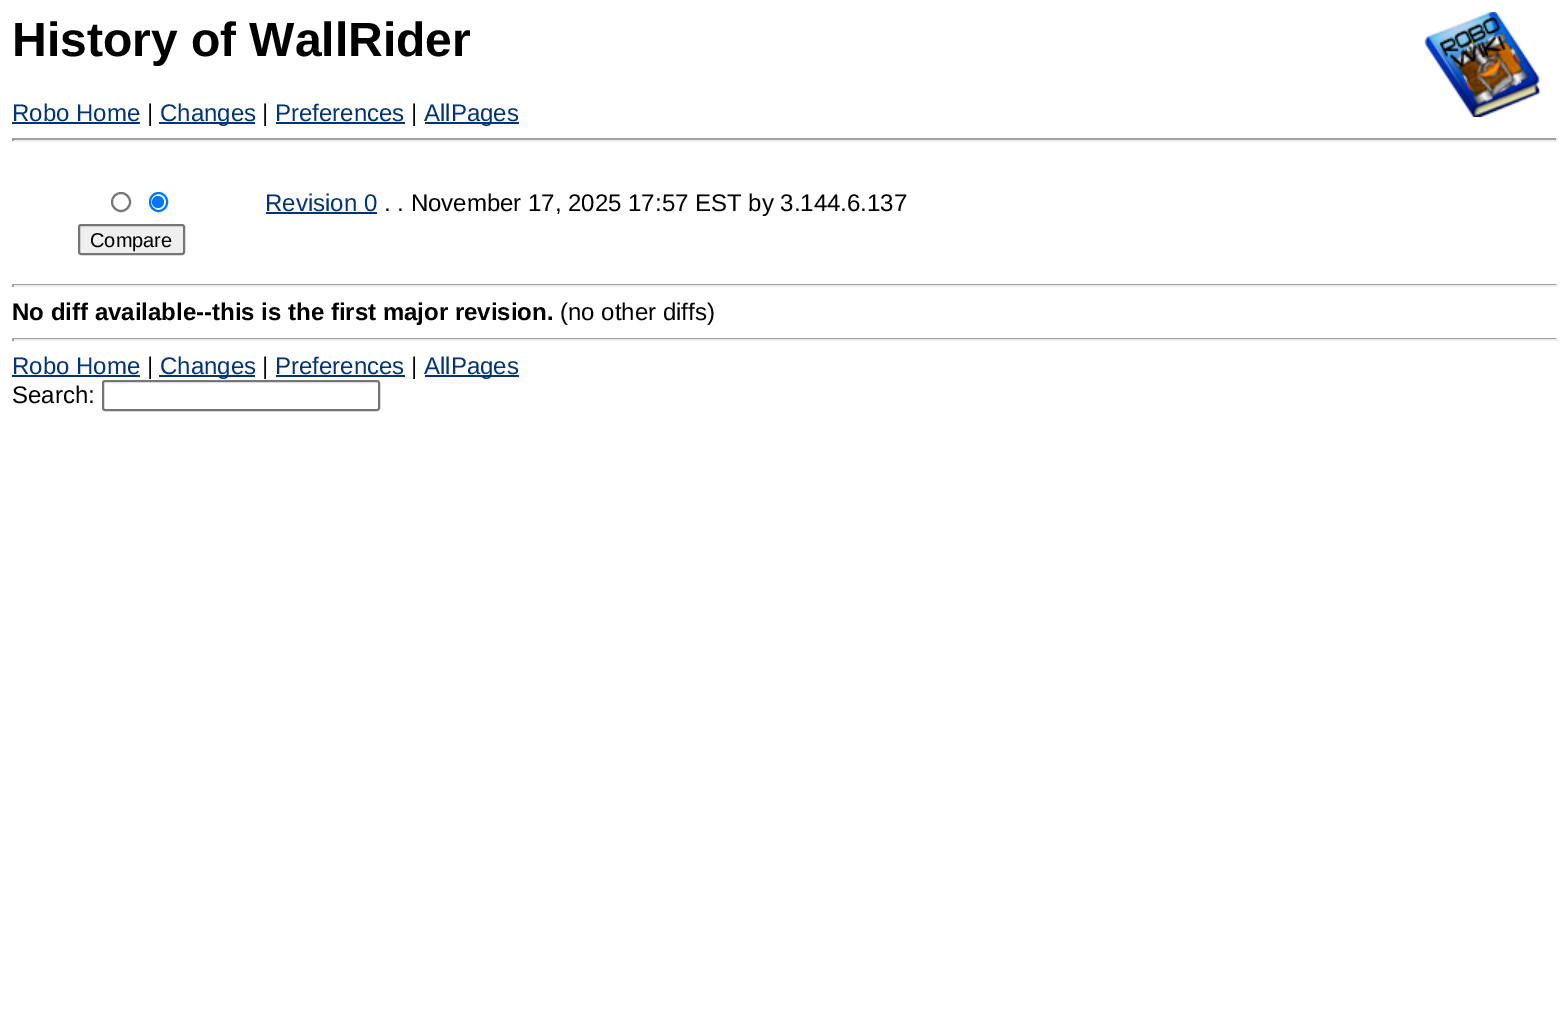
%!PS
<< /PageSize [1568 1023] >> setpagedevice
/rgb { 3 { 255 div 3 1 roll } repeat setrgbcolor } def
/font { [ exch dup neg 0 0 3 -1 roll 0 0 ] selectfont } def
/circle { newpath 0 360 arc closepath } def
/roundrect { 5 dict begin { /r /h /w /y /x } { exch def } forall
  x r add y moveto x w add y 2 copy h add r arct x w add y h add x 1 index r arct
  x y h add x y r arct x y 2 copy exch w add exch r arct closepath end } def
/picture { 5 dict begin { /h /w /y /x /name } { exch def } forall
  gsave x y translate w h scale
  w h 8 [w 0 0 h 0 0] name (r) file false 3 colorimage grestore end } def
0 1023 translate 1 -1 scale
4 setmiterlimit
255 255 255 rgb
0 0 1568 1023 rectfill
(img/1.rgb) 1424 12 117 105 picture
[
  [12 122 128 2 0 51 119]
  [159 122 96 2 0 51 119]
  [276 122 129 2 0 51 119]
  [425 122 94 2 0 51 119]
  [12 138 1545 2 159 159 159]
  [1556 138 2 3 238 238 238]
  [12 140 1545 2 238 238 238]
  [12 138 2 3 159 159 159]
] { aload pop rgb rectfill } forall
118 118 118 rgb
2 setlinewidth
121 202 9 circle stroke
0 117 255 rgb
150 193 17 18 8.5 roundrect stroke
158 202 6 circle fill
0 51 119 rgb
266 212 111 2 rectfill
239 239 239 rgb
79 225 105 29 2 roundrect gsave fill grestore
118 118 118 rgb
stroke
[
  [12 284 1545 1 159 159 159]
  [1556 284 2 3 238 238 238]
  [12 285 1545 2 238 238 238]
  [12 284 2 3 159 159 159]
  [12 338 1545 1 159 159 159]
  [1556 338 2 3 238 238 238]
  [12 339 1545 2 238 238 238]
  [12 338 2 3 159 159 159]
  [12 375 128 2 0 51 119]
  [159 375 96 2 0 51 119]
  [276 375 129 2 0 51 119]
  [425 375 94 2 0 51 119]
] { aload pop rgb rectfill } forall
118 118 118 rgb
103 381 276 29 2 roundrect stroke
/LiberationSans-Bold 48 font
0 0 0 rgb
12 56 moveto (History of WallRider) show
/LiberationSans-Regular 24 font
0 51 119 rgb
12 121 moveto (Robo Home) show
0 0 0 rgb
147 121 moveto (|) show
0 51 119 rgb
160 121 moveto (Changes) show
0 0 0 rgb
262 121 moveto (|) show
0 51 119 rgb
275 121 moveto (Preferences) show
0 0 0 rgb
411 121 moveto (|) show
0 51 119 rgb
424 121 moveto (AllPages) show
265 211 moveto (Revision 0) show
0 0 0 rgb
384 211 moveto (. . November 17, 2025 17:57 EST by 3.144.6.137) show
/LiberationSans-Regular 20 font
90 247 moveto (Compare) show
/LiberationSans-Bold 24 font
12 320 moveto (No diff available--this is the first major revision.) show
/LiberationSans-Regular 24 font
560 320 moveto (\(no other diffs\)) show
0 51 119 rgb
12 374 moveto (Robo Home) show
0 0 0 rgb
147 374 moveto (|) show
0 51 119 rgb
160 374 moveto (Changes) show
0 0 0 rgb
262 374 moveto (|) show
0 51 119 rgb
275 374 moveto (Preferences) show
0 0 0 rgb
411 374 moveto (|) show
0 51 119 rgb
424 374 moveto (AllPages) show
0 0 0 rgb
12 403 moveto (Search:) show
showpage
